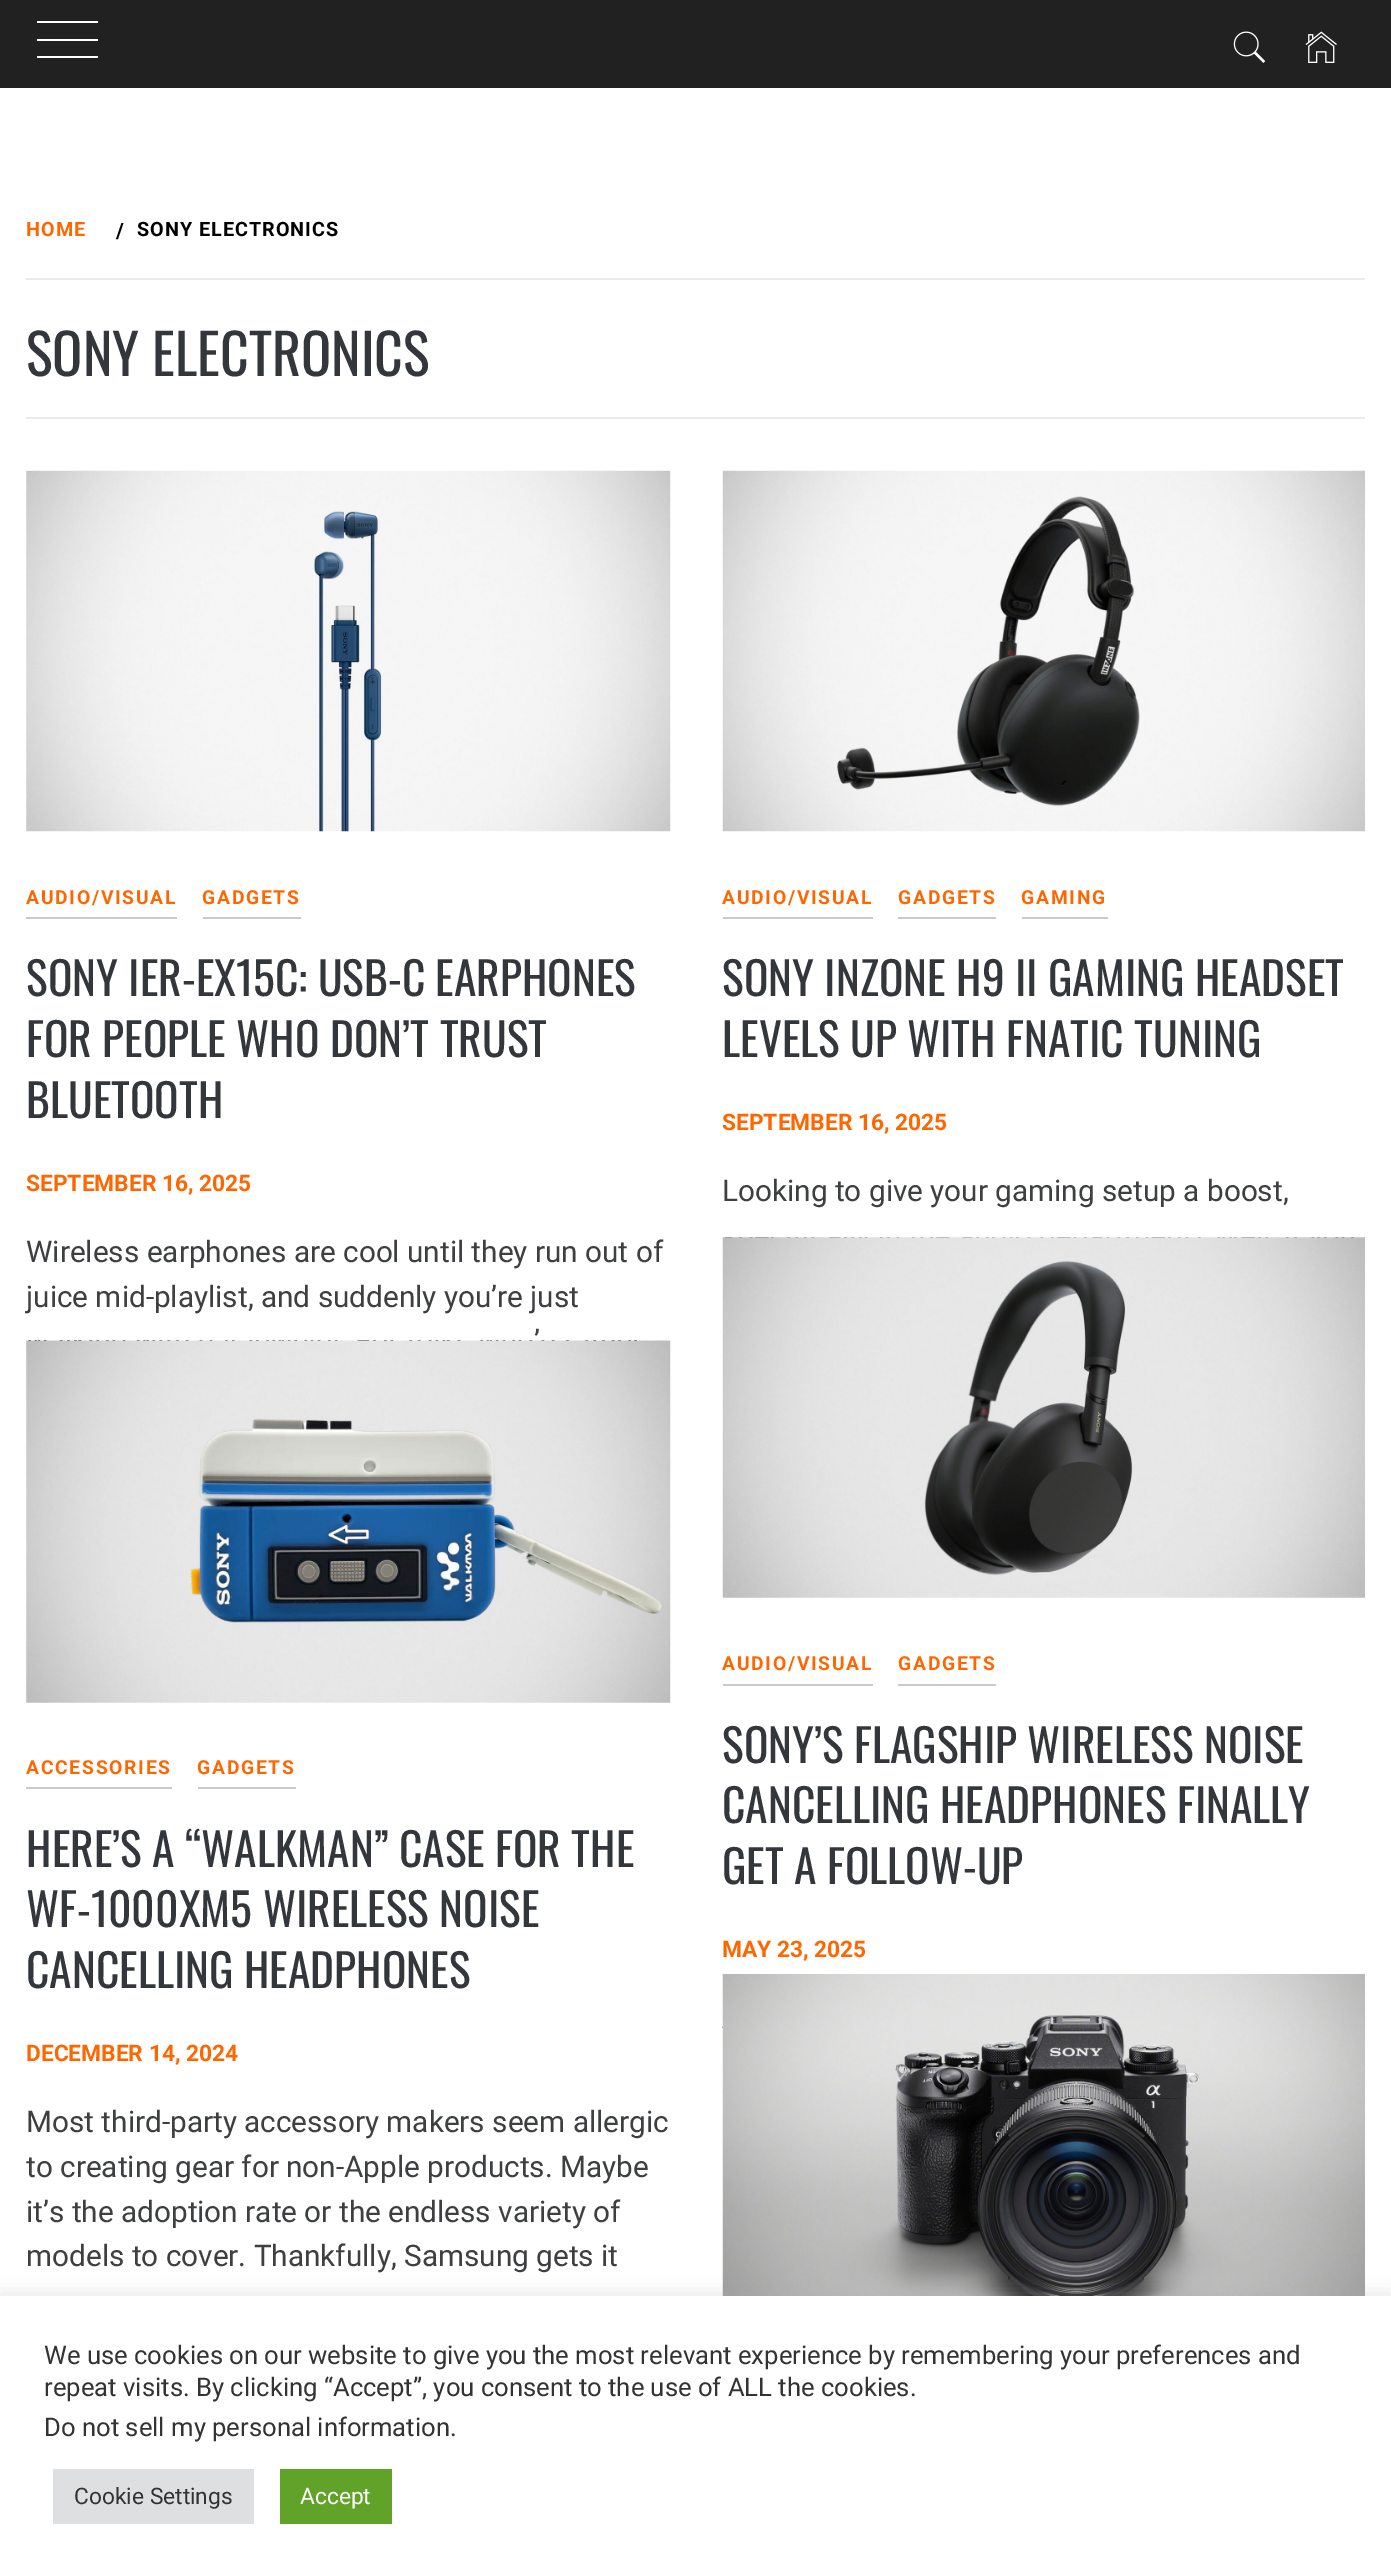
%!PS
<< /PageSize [1391 2576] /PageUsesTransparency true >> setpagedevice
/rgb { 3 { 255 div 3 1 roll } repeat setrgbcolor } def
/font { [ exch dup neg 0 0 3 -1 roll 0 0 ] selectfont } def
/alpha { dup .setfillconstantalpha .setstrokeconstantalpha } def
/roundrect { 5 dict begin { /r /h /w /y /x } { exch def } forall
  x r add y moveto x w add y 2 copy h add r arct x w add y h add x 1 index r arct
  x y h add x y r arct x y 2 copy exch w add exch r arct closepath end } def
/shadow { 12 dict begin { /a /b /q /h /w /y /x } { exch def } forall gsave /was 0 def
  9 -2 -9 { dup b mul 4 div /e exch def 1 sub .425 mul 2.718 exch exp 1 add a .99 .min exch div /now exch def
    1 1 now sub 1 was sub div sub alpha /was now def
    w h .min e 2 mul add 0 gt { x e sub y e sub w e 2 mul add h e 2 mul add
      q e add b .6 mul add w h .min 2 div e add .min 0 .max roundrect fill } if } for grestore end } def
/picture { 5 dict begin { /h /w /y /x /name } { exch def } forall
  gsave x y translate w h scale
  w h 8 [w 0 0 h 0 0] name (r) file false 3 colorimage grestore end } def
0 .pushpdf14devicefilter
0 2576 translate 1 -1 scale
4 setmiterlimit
255 255 255 rgb
0 0 1391 2576 rectfill
[
  [0 0 1391 88 33 33 33]
  [37 21 61 2 255 255 255]
  [37 39 61 2 255 255 255]
  [37 56 61 2 255 255 255]
] { aload pop rgb rectfill } forall
(img/1.rgb) 1233 31 33 32 picture
(img/2.rgb) 1305 31 32 32 picture
234 234 234 rgb
26 417 1339 2 rectfill
26 278 1339 2 rectfill
(img/3.rgb) 26 470 645 362 picture
202 202 202 rgb
26 917 151 2 rectfill
203 917 98 2 rectfill
(img/4.rgb) 722 470 643 362 picture
[
  [723 917 150 2 202 202 202]
  [898 917 98 2 202 202 202]
  [1022 917 86 2 202 202 202]
] { aload pop rgb rectfill } forall
(img/5.rgb) 26 1340 645 363 picture
26 1787 146 2 rectfill
198 1787 98 2 rectfill
(img/6.rgb) 722 1237 643 361 picture
723 1684 150 2 rectfill
898 1684 98 2 rectfill
(img/7.rgb) 722 1974 643 322 picture
172 171 171 rgb
0 2294 1391 280 0 9 0.3 shadow
[
  [0 2296 1391 280 255 255 255]
  [53 2469 201 55 222 223 224]
  [280 2469 112 55 97 162 41]
] { aload pop rgb rectfill } forall
/Roboto-Bold 19.75 font
255 102 0 rgb
26 236 moveto 1 0 (HOME) ashow
/Roboto-Bold 21 font
0 0 0 rgb
116 238 moveto 1 0 (/) ashow
/Roboto-Bold 19.75 font
137 236 moveto 1 0 (SONY ELECTRONICS) ashow
/Oswald-Regular 56 font
51 54 59 rgb
26 376 moveto (SONY ELECTRONICS) show
/Roboto-Bold 19.25 font
255 102 0 rgb
26 904 moveto 1.75 0 (AUDIO/VISUAL) ashow
202 904 moveto 1.75 0 (GADGETS) ashow
/Oswald-Regular 45.5 font
51 54 59 rgb
[
  [(SONY IER-EX15C: USB-C EARPHONES) 26 996]
  [(FOR PEOPLE WHO DON’T TRUST) 26 1057]
  [(BLUETOOTH) 26 1118]
] { aload pop moveto show } forall
/Roboto-Bold 22.75 font
255 102 0 rgb
26 1191 moveto (SEPTEMBER 16, 2025) show
/Roboto-Regular 29.75 font
62 63 64 rgb
[
  [(Wireless earphones are cool until they run out of) 26 1262]
  [(juice mid-playlist, and suddenly you’re just) 26 1307]
  [(’) 534 1351]
] { aload pop moveto show } forall
/Roboto-Bold 19.25 font
255 102 0 rgb
722 904 moveto 1.75 0 (AUDIO/VISUAL) ashow
898 904 moveto 1.75 0 (GADGETS) ashow
1021 904 moveto 1.75 0 (GAMING) ashow
/Oswald-Regular 45.5 font
51 54 59 rgb
722 996 moveto (SONY INZONE H9 II GAMING HEADSET) show
722 1057 moveto (LEVELS UP WITH FNATIC TUNING) show
/Roboto-Bold 22.75 font
255 102 0 rgb
722 1130 moveto (SEPTEMBER 16, 2025) show
/Roboto-Regular 29.75 font
62 63 64 rgb
722 1201 moveto (Looking to give your gaming setup a boost,) show
/Roboto-Bold 19.25 font
255 102 0 rgb
26 1774 moveto 1.75 0 (ACCESSORIES) ashow
197 1774 moveto 1.75 0 (GADGETS) ashow
/Oswald-Regular 45.5 font
51 54 59 rgb
[
  [(HERE’S A “WALKMAN” CASE FOR THE) 26 1867]
  [(WF-1000XM5 WIRELESS NOISE) 26 1927]
  [(CANCELLING HEADPHONES) 26 1988]
] { aload pop moveto show } forall
/Roboto-Bold 22.75 font
255 102 0 rgb
26 2061 moveto (DECEMBER 14, 2024) show
/Roboto-Regular 29.75 font
62 63 64 rgb
[
  [(Most third-party accessory makers seem allergic) 26 2132]
  [(to creating gear for non-Apple products. Maybe) 26 2177]
  [(it’s the adoption rate or the endless variety of) 26 2222]
  [(models to cover. Thankfully, Samsung gets it) 26 2266]
] { aload pop moveto show } forall
/Roboto-Bold 19.25 font
255 102 0 rgb
722 1670 moveto 1.75 0 (AUDIO/VISUAL) ashow
898 1670 moveto 1.75 0 (GADGETS) ashow
/Oswald-Regular 45.5 font
51 54 59 rgb
[
  [(SONY’S FLAGSHIP WIRELESS NOISE) 722 1763]
  [(CANCELLING HEADPHONES FINALLY) 722 1823]
  [(GET A FOLLOW-UP) 722 1884]
] { aload pop moveto show } forall
/Roboto-Bold 22.75 font
255 102 0 rgb
722 1957 moveto (MAY 23, 2025) show
/Roboto-Regular 25.65 font
51 51 51 rgb
[
  [(We use cookies on our website to give you the most relevant experience by remembering your preferences and) 44 2364]
  [(repeat visits. By clicking “Accept”, you consent to the use of ALL the cookies.) 44 2396]
  [(Do not sell my personal information.) 44 2436]
] { aload pop moveto show } forall
/Roboto-Regular 22.75 font
74 2504 moveto (Cookie Settings) show
255 255 255 rgb
300 2504 moveto (Accept) show
.poppdf14devicefilter showpage
